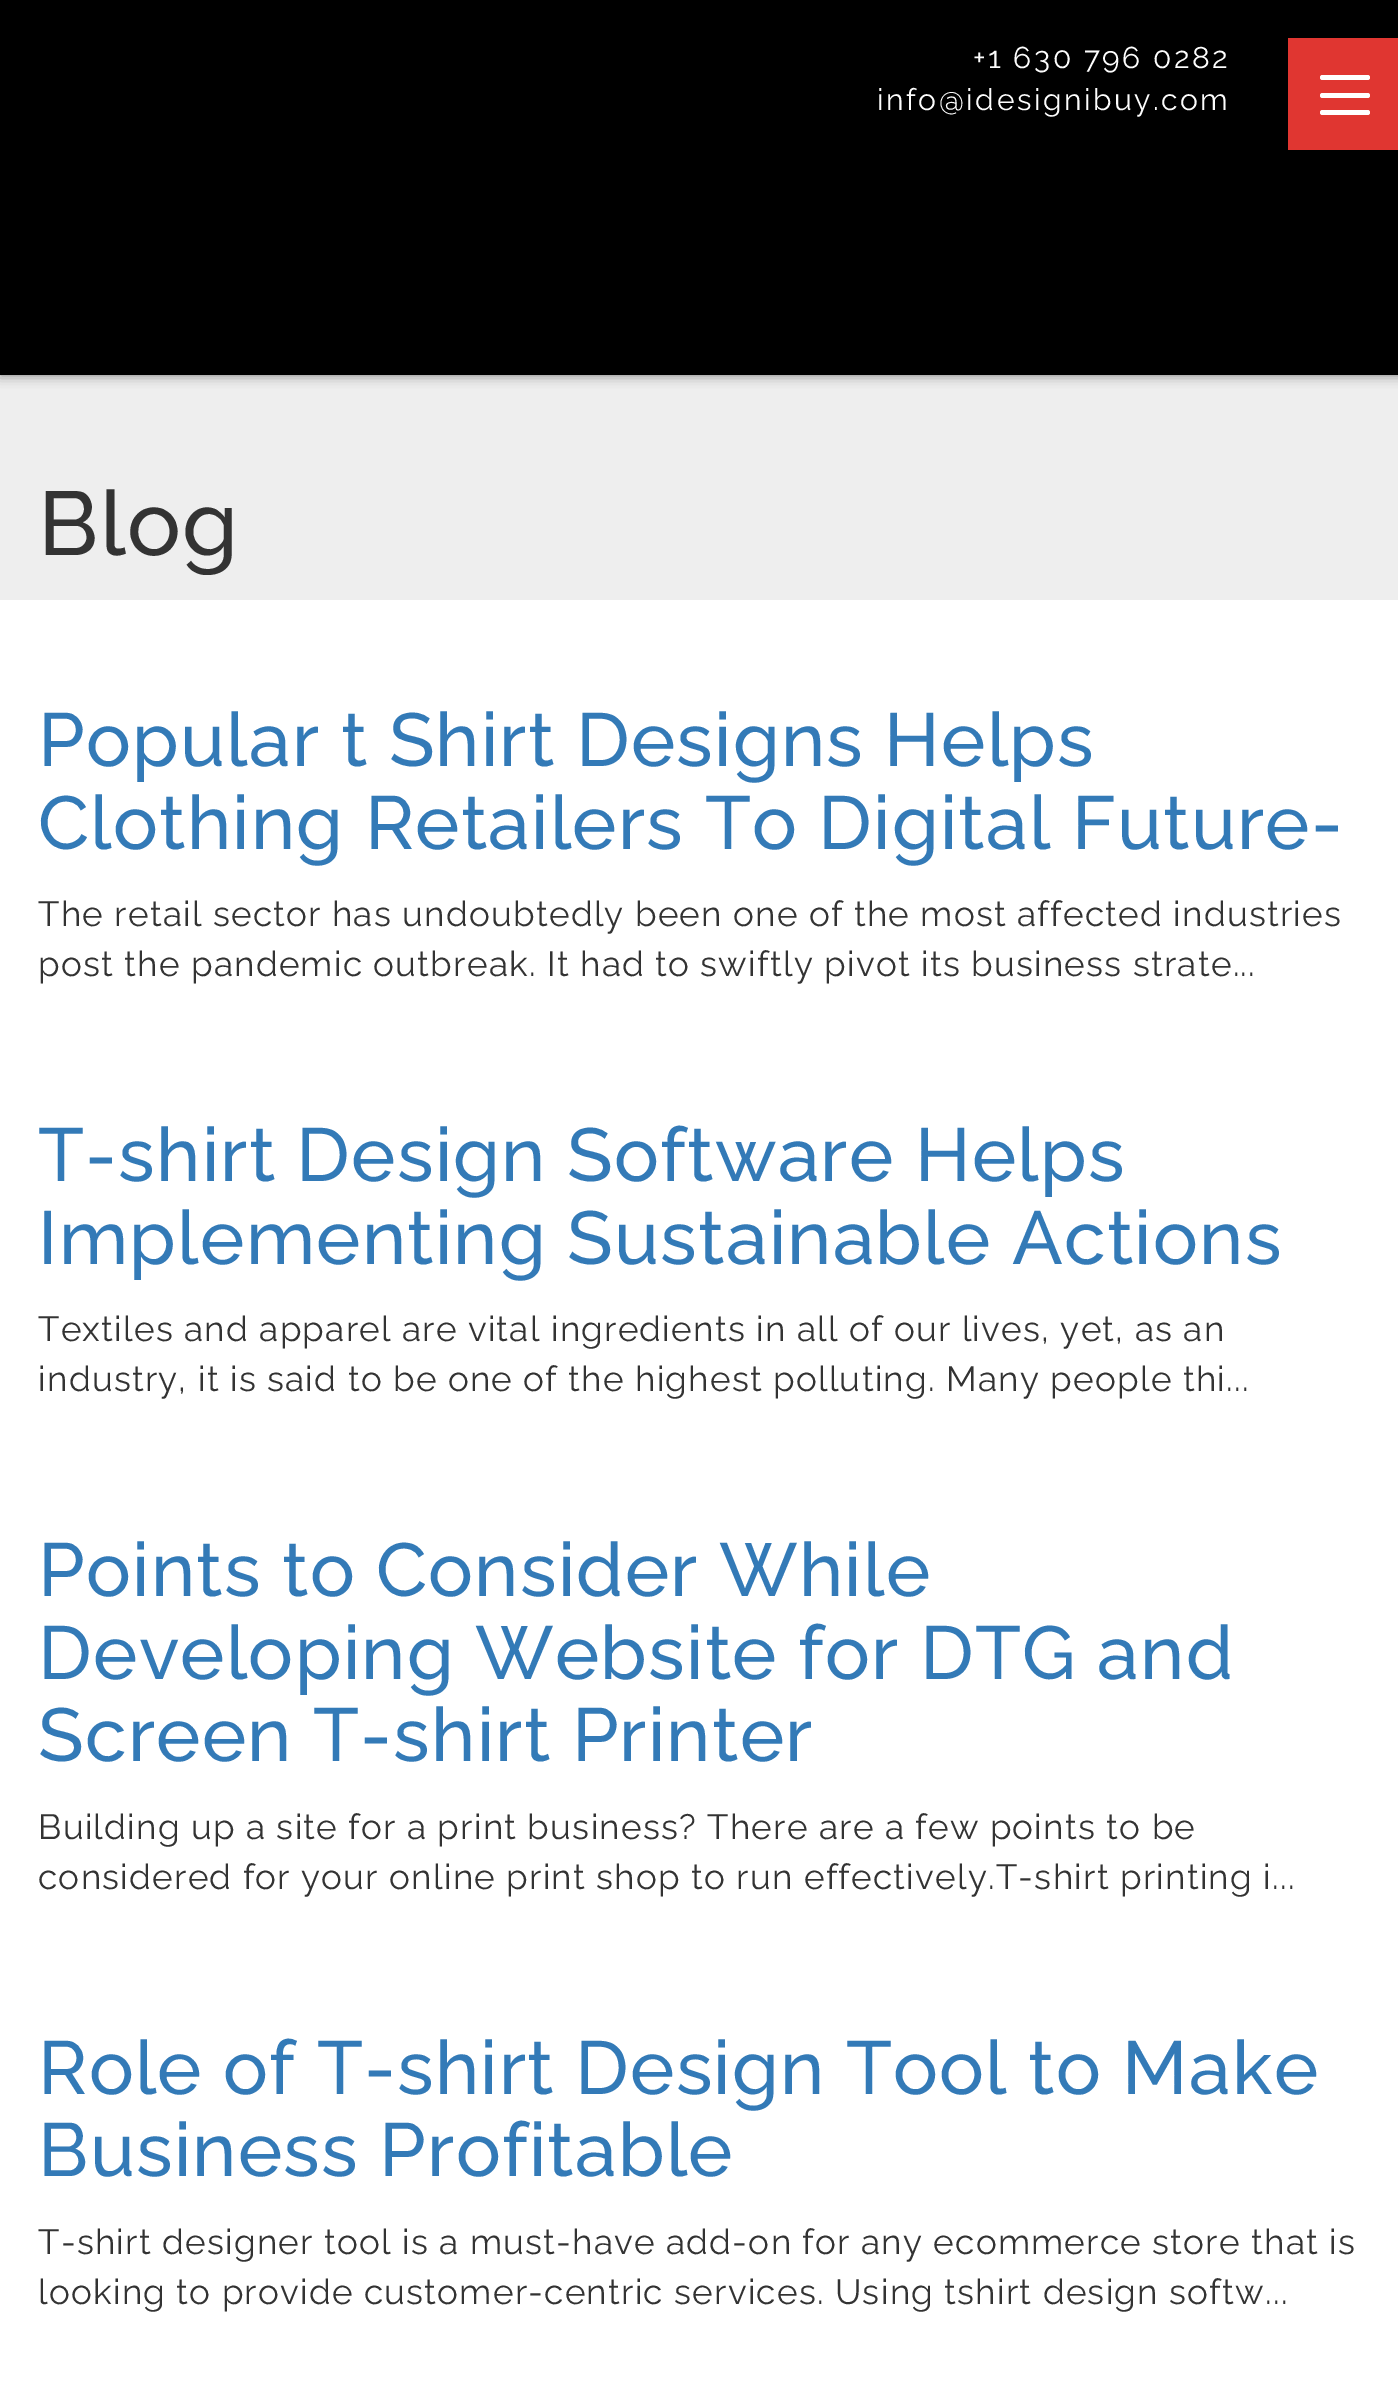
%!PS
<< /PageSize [1398 2386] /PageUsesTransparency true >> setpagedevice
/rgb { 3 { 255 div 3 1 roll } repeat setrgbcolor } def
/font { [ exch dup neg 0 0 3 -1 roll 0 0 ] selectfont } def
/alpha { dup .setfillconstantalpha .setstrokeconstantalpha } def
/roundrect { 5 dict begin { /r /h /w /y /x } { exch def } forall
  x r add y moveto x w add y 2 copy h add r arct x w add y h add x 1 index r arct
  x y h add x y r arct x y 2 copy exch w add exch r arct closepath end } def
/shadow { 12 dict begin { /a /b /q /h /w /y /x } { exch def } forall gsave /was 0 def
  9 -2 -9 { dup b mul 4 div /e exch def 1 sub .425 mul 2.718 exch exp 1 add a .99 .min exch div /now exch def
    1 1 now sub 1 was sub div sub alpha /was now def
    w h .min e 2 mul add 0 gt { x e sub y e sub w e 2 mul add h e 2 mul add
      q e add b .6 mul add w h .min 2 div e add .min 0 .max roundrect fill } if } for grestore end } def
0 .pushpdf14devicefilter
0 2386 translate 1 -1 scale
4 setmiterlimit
255 255 255 rgb
0 0 1398 2386 rectfill
238 238 238 rgb
0 375 1398 225 rectfill
119 119 119 rgb
0 0 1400 375 0 6 1 shadow
0 0 0 rgb
0 0 1398 375 rectfill
224 54 49 rgb
1288 38 110 112 rectfill
255 255 255 rgb
1320 93 50 5 2.5 roundrect fill
1320 75 50 5 2.5 roundrect fill
1320 110 50 5 2.5 roundrect fill
/Raleway-Regular 30 font
253 253 253 rgb
973 68 moveto 2.5 0 (+1 630 796 0282) ashow
877 110 moveto 2.5 0 (info@idesignibuy.com) ashow
/Raleway-Medium 90 font
51 51 51 rgb
38 555 moveto 1.25 0 (Blog) ashow
/Raleway-Medium 75 font
51 122 183 rgb
38 766 moveto 1.25 0 (Popular t Shirt Designs Helps) ashow
38 849 moveto 1.25 0 (Clothing Retailers To Digital Future-) ashow
/Raleway-Regular 35 font
51 51 51 rgb
38 926 moveto 1.25 0 (The retail sector has undoubtedly been one of the most affected industries) ashow
38 976 moveto 1.25 0 (post the pandemic outbreak. It had to swiftly pivot its business strate...) ashow
/Raleway-Medium 75 font
51 122 183 rgb
38 1181 moveto 1.25 0 (T-shirt Design Software Helps) ashow
38 1264 moveto 1.25 0 (Implementing Sustainable Actions) ashow
/Raleway-Regular 35 font
51 51 51 rgb
38 1341 moveto 1.25 0 (Textiles and apparel are vital ingredients in all of our lives, yet, as an) ashow
38 1391 moveto 1.25 0 (industry, it is said to be one of the highest polluting. Many people thi...) ashow
/Raleway-Medium 75 font
51 122 183 rgb
38 1596 moveto 1.25 0 (Points to Consider While) ashow
38 1679 moveto 1.25 0 (Developing Website for DTG and) ashow
38 1761 moveto 1.25 0 (Screen T-shirt Printer) ashow
/Raleway-Regular 35 font
51 51 51 rgb
38 1839 moveto 1.25 0 (Building up a site for a print business? There are a few points to be) ashow
38 1889 moveto 1.25 0 (considered for your online print shop to run effectively.T-shirt printing i...) ashow
/Raleway-Medium 75 font
51 122 183 rgb
38 2094 moveto 1.25 0 (Role of T-shirt Design Tool to Make) ashow
38 2176 moveto 1.25 0 (Business Profitable) ashow
/Raleway-Regular 35 font
51 51 51 rgb
38 2254 moveto 1.25 0 (T-shirt designer tool is a must-have add-on for any ecommerce store that is) ashow
38 2304 moveto 1.25 0 (looking to provide customer-centric services. Using tshirt design softw...) ashow
.poppdf14devicefilter showpage
